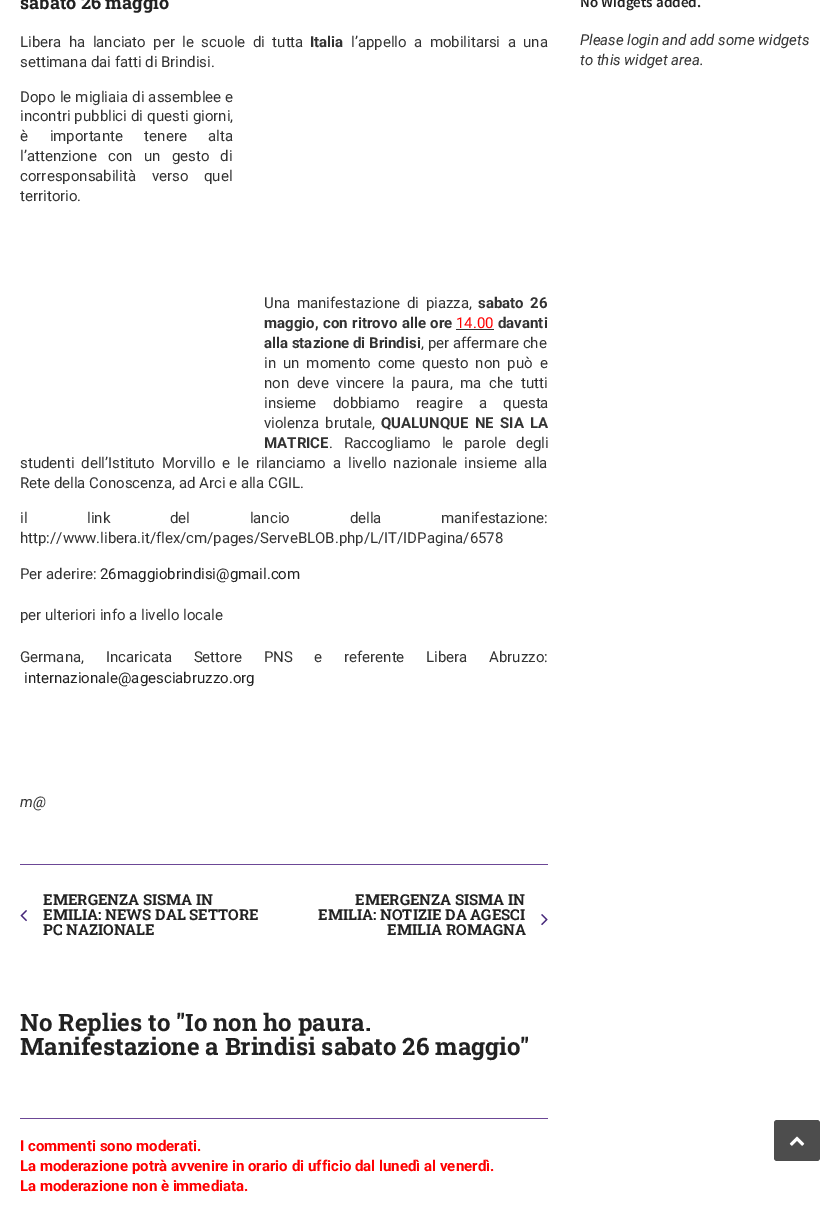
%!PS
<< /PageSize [840 1231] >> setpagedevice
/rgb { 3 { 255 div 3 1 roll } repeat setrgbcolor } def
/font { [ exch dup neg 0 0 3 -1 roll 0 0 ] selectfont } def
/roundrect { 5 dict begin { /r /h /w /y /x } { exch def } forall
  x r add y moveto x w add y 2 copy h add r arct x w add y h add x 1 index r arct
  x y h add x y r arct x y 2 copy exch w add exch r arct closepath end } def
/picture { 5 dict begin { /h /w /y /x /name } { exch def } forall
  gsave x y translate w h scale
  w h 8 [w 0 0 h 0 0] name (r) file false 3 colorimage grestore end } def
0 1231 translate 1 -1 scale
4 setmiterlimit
255 255 255 rgb
0 0 840 1231 rectfill
51 51 51 rgb
456 329 38 1 rectfill
108 71 150 rgb
20 864 528 1 rectfill
(img/1.rgb) 20 910 7 12 picture
(img/2.rgb) 541 914 7 12 picture
20 1118 528 1 rectfill
77 77 77 rgb
774 1120 46 41 3 roundrect fill
(img/3.rgb) 789 1136 16 10 picture
/RobotoSlab-Bold 18 font
34 34 34 rgb
20 9 moveto (sabato 26 maggio) show
/Roboto-Regular 15 font
51 51 51 rgb
20 47 moveto 3.75 0 32 (Libera ha lanciato per le scuole di tutta) widthshow
/Roboto-Bold 15 font
310 47 moveto (Italia) show
/Roboto-Regular 15 font
351 47 moveto 3.75 0 32 (l’appello a mobilitarsi a una) widthshow
20 67 moveto (settimana dai fatti di Brindisi.) show
20 102 moveto 0.5 0 32 (Dopo le migliaia di assemblee e) widthshow
20 121 moveto 0.5 0 32 (incontri pubblici di questi giorni,) widthshow
20 141 moveto 18 0 32 (è importante tenere alta) widthshow
20 161 moveto 7.5 0 32 (l’attenzione con un gesto di) widthshow
20 181 moveto 12 0 32 (corresponsabilità verso quel) widthshow
20 201 moveto (territorio.) show
264 308 moveto 3 0 32 (Una manifestazione di piazza,) widthshow
/Roboto-Bold 15 font
478 308 moveto 3 0 32 (sabato 26) widthshow
264 328 moveto 1 0 32 (maggio, con ritrovo alle ore) widthshow
/Roboto-Regular 15 font
255 0 0 rgb
456 328 moveto (14.00) show
/Roboto-Bold 15 font
51 51 51 rgb
498 328 moveto (davanti) show
264 348 moveto (alla stazione di Brindisi) show
/Roboto-Regular 15 font
421 348 moveto (, per affermare che) show
264 368 moveto 3.25 0 32 (in un momento come questo non può e) widthshow
264 388 moveto 4 0 32 (non deve vincere la paura, ma che tutti) widthshow
264 408 moveto 12.5 0 32 (insieme dobbiamo reagire a questa) widthshow
264 428 moveto 2.5 0 32 (violenza brutale,) widthshow
/Roboto-Bold 15 font
381 428 moveto 2.5 0 32 (QUALUNQUE NE SIA LA) widthshow
264 448 moveto (MATRICE) show
/Roboto-Regular 15 font
329 448 moveto 7 0 32 (. Raccogliamo le parole degli) widthshow
20 468 moveto 3.25 0 32 (studenti dell’Istituto Morvillo e le rilanciamo a livello nazionale insieme alla) widthshow
20 488 moveto (Rete della Conoscenza, ad Arci e alla CGIL.) show
20 523 moveto 56 0 32 (il link del lancio della manifestazione:) widthshow
20 543 moveto (http://www.libera.it/flex/cm/pages/ServeBLOB.php/L/IT/IDPagina/6578) show
20 579 moveto (Per aderire:) show
34 34 34 rgb
100 579 moveto (26maggiobrindisi@gmail.com) show
51 51 51 rgb
20 620 moveto (per ulteriori info a livello locale) show
20 662 moveto 18 0 32 (Germana, Incaricata Settore PNS e referente Libera Abruzzo:) widthshow
34 34 34 rgb
24 683 moveto (internazionale@agesciabruzzo.org) show
/Roboto-Italic 15 font
51 51 51 rgb
20 807 moveto (m@) show
/RobotoSlab-Bold 15 font
34 34 34 rgb
[
  [(EMERGENZA SISMA IN) 43 905]
  [(EMILIA: NEWS DAL SETTORE) 43 920]
  [(PC NAZIONALE) 43 935]
  [(EMERGENZA SISMA IN) 355 905]
  [(EMILIA: NOTIZIE DA AGESCI) 318 920]
  [(EMILIA ROMAGNA) 387 935]
] { aload pop moveto show } forall
/RobotoSlab-Bold 24 font
20 1031 moveto (No Replies to "Io non ho paura.) show
20 1055 moveto (Manifestazione a Brindisi sabato 26 maggio") show
/Roboto-Bold 15 font
255 0 0 rgb
[
  [(I commenti sono moderati.) 20 1151]
  [(La moderazione potrà avvenire in orario di ufficio dal lunedì al venerdì.) 20 1171]
  [(La moderazione non è immediata.) 20 1191]
] { aload pop moveto show } forall
/SourceSansPro-SemiBold 15 font
34 34 34 rgb
580 7 moveto (No Widgets added.) show
/Roboto-Italic 15 font
51 51 51 rgb
580 45 moveto (Please login and add some widgets) show
580 65 moveto (to this widget area.) show
showpage
